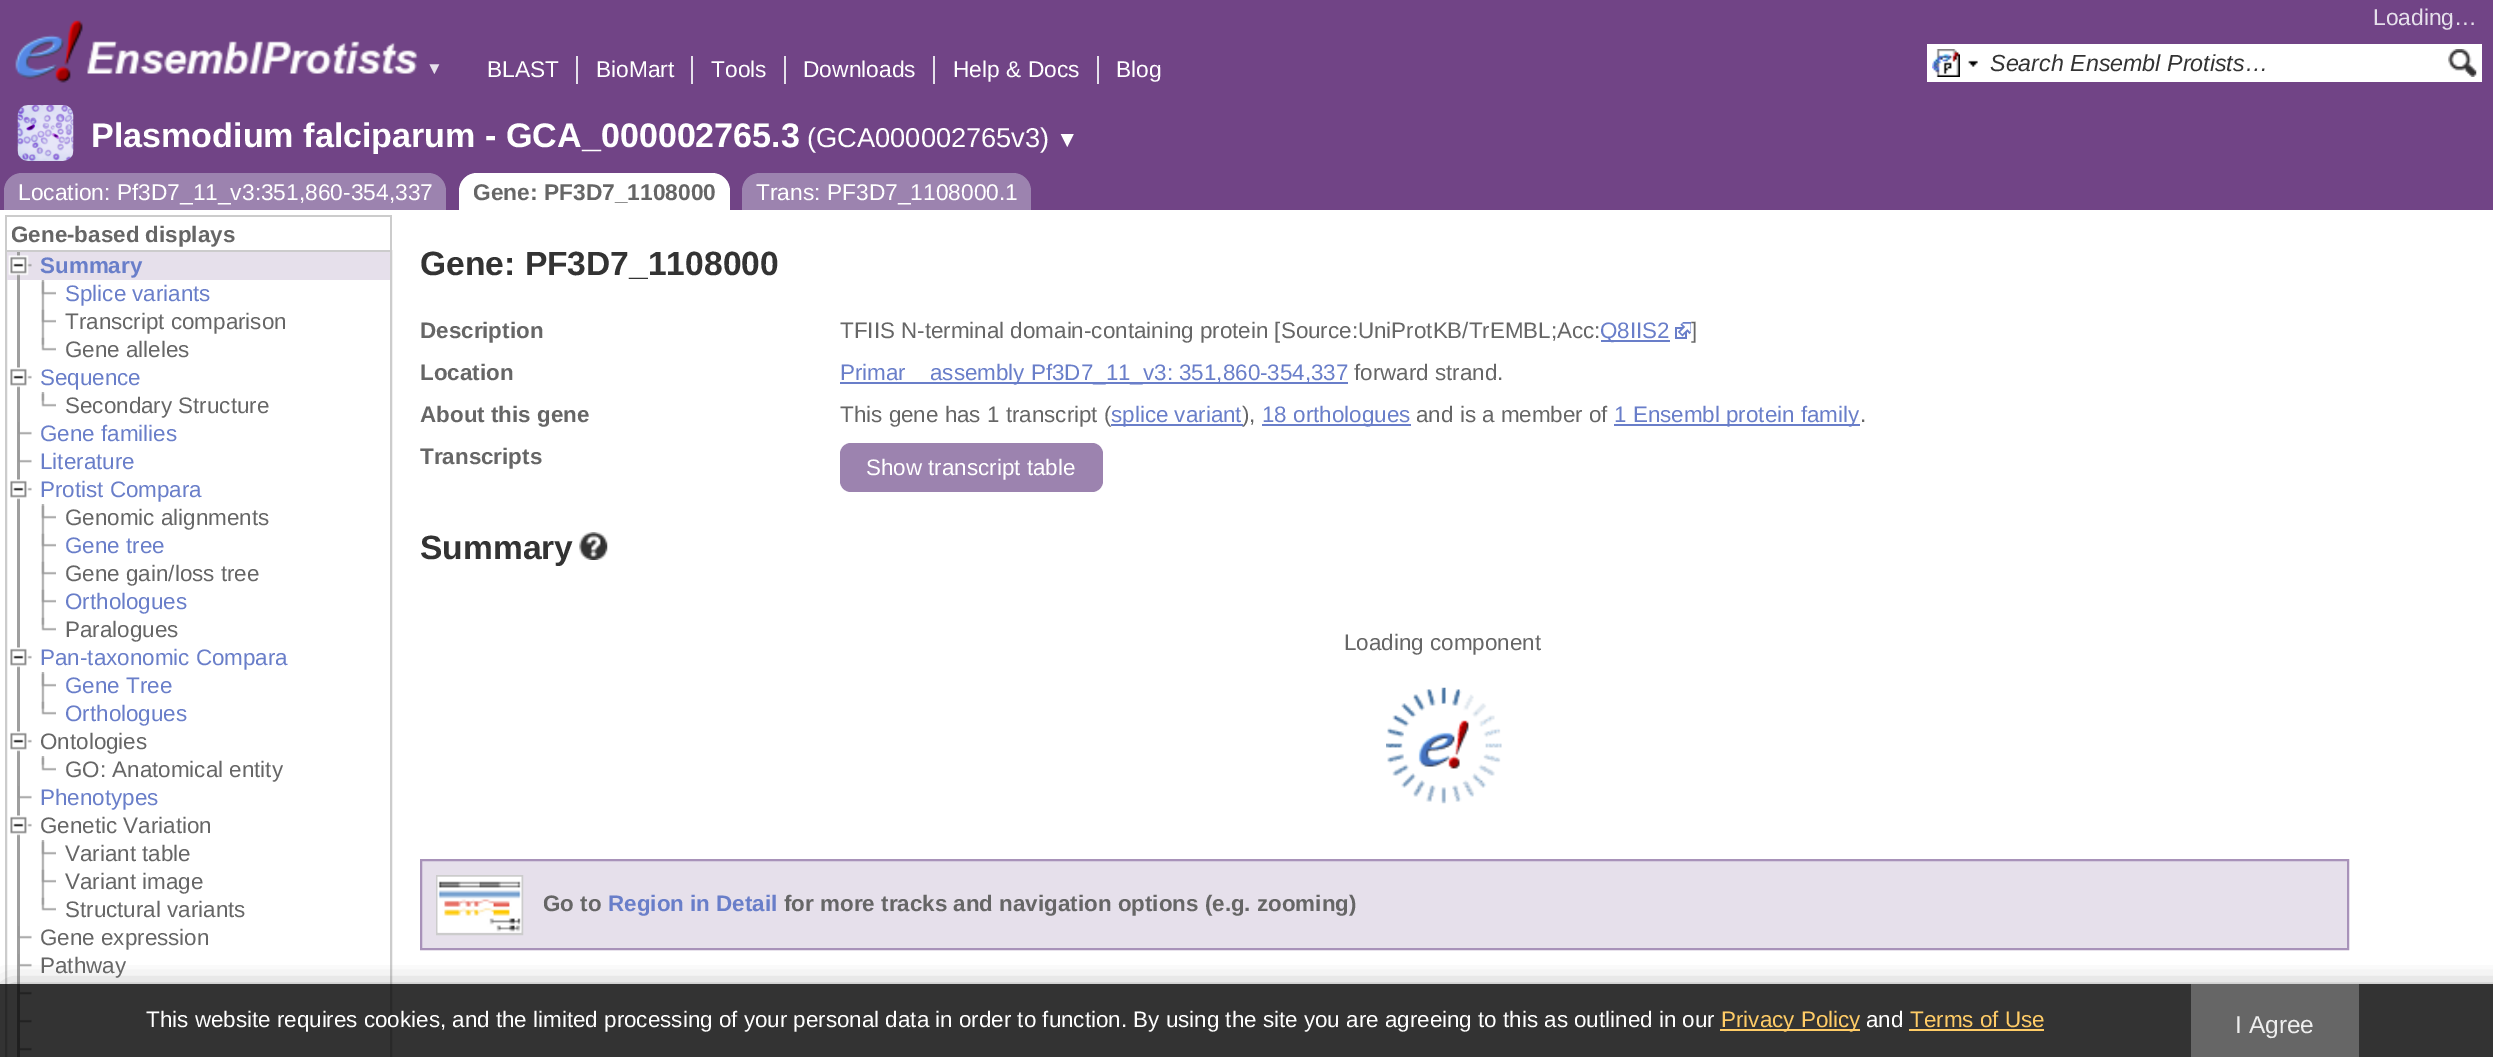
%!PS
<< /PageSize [2493 1057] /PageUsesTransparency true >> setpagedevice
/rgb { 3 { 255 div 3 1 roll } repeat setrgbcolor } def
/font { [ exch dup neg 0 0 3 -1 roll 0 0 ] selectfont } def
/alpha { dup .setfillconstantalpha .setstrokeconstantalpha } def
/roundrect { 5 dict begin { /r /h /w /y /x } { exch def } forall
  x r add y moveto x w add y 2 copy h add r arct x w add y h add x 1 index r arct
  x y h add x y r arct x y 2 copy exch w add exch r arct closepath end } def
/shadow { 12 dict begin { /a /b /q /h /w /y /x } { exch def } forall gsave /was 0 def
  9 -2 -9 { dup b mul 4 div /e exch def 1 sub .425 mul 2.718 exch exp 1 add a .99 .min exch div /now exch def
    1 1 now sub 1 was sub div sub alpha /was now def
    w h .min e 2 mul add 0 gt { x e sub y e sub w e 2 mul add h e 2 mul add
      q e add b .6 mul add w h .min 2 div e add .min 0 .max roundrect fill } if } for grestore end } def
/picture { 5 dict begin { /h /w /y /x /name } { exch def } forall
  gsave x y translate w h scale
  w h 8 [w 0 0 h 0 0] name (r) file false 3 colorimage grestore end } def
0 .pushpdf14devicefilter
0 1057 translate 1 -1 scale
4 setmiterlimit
255 255 255 rgb
0 0 2493 1057 rectfill
113 68 134 rgb
0 0 2493 210 rectfill
(img/1.rgb) 15 20 68 63 picture
(img/2.rgb) 87 41 332 33 picture
[
  [576 56 2 28 230 224 235]
  [691 56 2 28 230 224 235]
  [784 56 2 28 230 224 235]
  [933 56 2 28 230 224 235]
  [1097 56 2 28 230 224 235]
  [1927 44 555 38 255 255 255]
] { aload pop rgb rectfill } forall
(img/3.rgb) 1932 49 28 28 picture
(img/4.rgb) 1968 60 10 7 picture
(img/5.rgb) 2448 49 29 28 picture
(img/6.rgb) 17 105 57 56 picture
156 131 175 rgb
22 173 moveto 428 173 lineto 438 173 446 181 446 191 curveto 446 210 lineto 4 210 lineto 4 191 lineto 4 181 12 173 22 173 curveto closepath fill
255 255 255 rgb
477 173 moveto 712 173 lineto 722 173 730 181 730 191 curveto 730 210 lineto 459 210 lineto 459 191 lineto 459 181 467 173 477 173 curveto closepath fill
156 131 175 rgb
760 173 moveto 1013 173 lineto 1023 173 1031 181 1031 191 curveto 1031 210 lineto 742 210 lineto 742 191 lineto 742 181 750 173 760 173 curveto closepath fill
[
  [5 215 387 2 204 204 204]
  [390 215 2 35 204 204 204]
  [5 215 2 35 204 204 204]
] { aload pop rgb rectfill } forall
2 setlinewidth
6 251 385 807 rectstroke
230 224 235 rgb
7 252 383 28 rectfill
158 157 158 rgb
17 252 3 28 rectfill
(img/7.rgb) 8 254 24 22 picture
159 159 159 rgb
17 280 3 777 rectfill
(img/8.rgb) 41 280 4 28 picture
(img/9.rgb) 41 281 15 14 picture
(img/8.rgb) 41 308 4 28 picture
(img/9.rgb) 41 309 15 14 picture
(img/10.rgb) 41 336 4 10 picture
(img/11.rgb) 41 337 15 14 picture
(img/12.rgb) 10 366 22 22 picture
(img/10.rgb) 41 392 4 10 picture
(img/11.rgb) 41 393 15 14 picture
(img/13.rgb) 18 422 14 13 picture
(img/13.rgb) 18 450 14 13 picture
(img/12.rgb) 10 478 22 22 picture
(img/8.rgb) 41 504 4 28 picture
(img/9.rgb) 41 505 15 14 picture
(img/8.rgb) 41 532 4 28 picture
(img/9.rgb) 41 533 15 14 picture
(img/8.rgb) 41 560 4 28 picture
(img/9.rgb) 41 561 15 14 picture
(img/8.rgb) 41 588 4 28 picture
(img/9.rgb) 41 589 15 14 picture
(img/10.rgb) 41 616 4 10 picture
(img/11.rgb) 41 617 15 14 picture
(img/12.rgb) 10 646 22 22 picture
(img/8.rgb) 41 672 4 28 picture
(img/9.rgb) 41 673 15 14 picture
(img/10.rgb) 41 700 4 10 picture
(img/11.rgb) 41 701 15 14 picture
(img/12.rgb) 10 730 22 22 picture
(img/10.rgb) 41 756 4 10 picture
(img/11.rgb) 41 757 15 14 picture
(img/13.rgb) 18 786 14 13 picture
(img/12.rgb) 10 814 22 22 picture
(img/8.rgb) 41 840 4 28 picture
(img/9.rgb) 41 841 15 14 picture
(img/8.rgb) 41 868 4 28 picture
(img/9.rgb) 41 869 15 14 picture
(img/10.rgb) 41 896 4 10 picture
(img/11.rgb) 41 897 15 14 picture
(img/13.rgb) 18 926 14 13 picture
(img/13.rgb) 18 954 14 13 picture
(img/13.rgb) 18 982 14 13 picture
(img/13.rgb) 18 1010 14 13 picture
(img/13.rgb) 18 1038 14 13 picture
105 126 201 rgb
1601 340 69 2 rectfill
(img/14.rgb) 1675 322 16 17 picture
[
  [840 382 508 2 105 126 201]
  [1262 424 149 2 105 126 201]
  [1614 424 246 2 105 126 201]
] { aload pop rgb rectfill } forall
156 131 175 rgb
840 443 263 49 11 roundrect fill
(img/15.rgb) 579 532 29 28 picture
(img/16.rgb) 1386 687 116 117 picture
230 224 235 rgb
421 860 moveto 2348 860 lineto 2348 949 lineto 421 949 lineto closepath gsave fill grestore
168 146 185 rgb
stroke
204 204 204 rgb
437 876 85 58 rectstroke
(img/17.rgb) 437 876 85 57 picture
gsave
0 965 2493 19 rectclip
102 102 102 rgb
9 992 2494 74 0 13 1 shadow
grestore
0.8 alpha
[
  [0 984 2493 73 0 0 0]
] { aload pop rgb rectfill } forall
1 alpha
[
  [1720 1029 140 2 255 204 102]
  [1909 1029 135 2 255 204 102]
  [2191 984 168 73 102 102 102]
] { aload pop rgb rectfill } forall
/LiberationSans-Regular 17 font
230 224 235 rgb
426 74 moveto (▼) show
/LiberationSans-Regular 22.75 font
2373 25 moveto (Loading…) show
255 255 255 rgb
[
  [(BLAST) 487 77]
  [(BioMart) 596 77]
  [(Tools) 711 77]
  [(Downloads) 803 77]
  [(Help & Docs) 953 77]
  [(Blog) 1116 77]
] { aload pop moveto show } forall
/LiberationSans-Italic 23.25 font
51 51 51 rgb
1990 71 moveto (Search Ensembl Protists…) show
/LiberationSans-Bold 34.1 font
255 255 255 rgb
91 147 moveto (Plasmodium falciparum - GCA_000002765.3) show
/LiberationSans-Regular 27.25 font
807 147 moveto (\(GCA000002765v3\)) show
/LiberationSans-Regular 22.75 font
1056 147 moveto (▼) show
18 200 moveto (Location: Pf3D7_11_v3:351,860-354,337) show
/LiberationSans-Bold 22.75 font
102 102 102 rgb
473 200 moveto (Gene: PF3D7_1108000) show
/LiberationSans-Regular 22.75 font
255 255 255 rgb
756 200 moveto (Trans: PF3D7_1108000.1) show
/LiberationSans-Bold 22.4 font
102 102 102 rgb
11 242 moveto (Gene-based displays) show
105 126 201 rgb
40 273 moveto (Summary) show
/LiberationSans-Regular 22.4 font
65 301 moveto (Splice variants) show
102 102 102 rgb
65 329 moveto (Transcript comparison) show
65 357 moveto (Gene alleles) show
105 126 201 rgb
40 385 moveto (Sequence) show
102 102 102 rgb
65 413 moveto (Secondary Structure) show
105 126 201 rgb
[
  [(Gene families) 40 441]
  [(Literature) 40 469]
  [(Protist Compara) 40 497]
] { aload pop moveto show } forall
102 102 102 rgb
65 525 moveto (Genomic alignments) show
105 126 201 rgb
65 553 moveto (Gene tree) show
102 102 102 rgb
65 581 moveto (Gene gain/loss tree) show
105 126 201 rgb
65 609 moveto (Orthologues) show
102 102 102 rgb
65 637 moveto (Paralogues) show
105 126 201 rgb
[
  [(Pan-taxonomic Compara) 40 665]
  [(Gene Tree) 65 693]
  [(Orthologues) 65 721]
] { aload pop moveto show } forall
102 102 102 rgb
40 749 moveto (Ontologies) show
65 777 moveto (GO: Anatomical entity) show
105 126 201 rgb
40 805 moveto (Phenotypes) show
102 102 102 rgb
[
  [(Genetic Variation) 40 833]
  [(Variant table) 65 861]
  [(Variant image) 65 889]
  [(Structural variants) 65 917]
  [(Gene expression) 40 945]
  [(Pathway) 40 973]
] { aload pop moveto show } forall
/LiberationSans-Bold 33.6 font
51 51 51 rgb
420 275 moveto (Gene: PF3D7_1108000) show
/LiberationSans-Bold 22.4 font
102 102 102 rgb
420 338 moveto (Description) show
/LiberationSans-Regular 22.4 font
840 338 moveto (TFIIS N-terminal domain-containing protein [Source:UniProtKB/TrEMBL;Acc:) show
105 126 201 rgb
1600 338 moveto (Q8IIS2) show
102 102 102 rgb
1691 338 moveto (]) show
/LiberationSans-Bold 22.4 font
420 380 moveto (Location) show
/LiberationSans-Regular 22.4 font
105 126 201 rgb
840 380 moveto (Primar) show
930 380 moveto (assembly Pf3D7_11_v3: 351,860-354,337) show
102 102 102 rgb
1354 380 moveto (forward strand.) show
/LiberationSans-Bold 22.4 font
420 422 moveto (About this gene) show
/LiberationSans-Regular 22.4 font
840 422 moveto (This gene has 1 transcript \() show
105 126 201 rgb
1111 424 132 2 rectfill
1111 422 moveto (splice variant) show
102 102 102 rgb
1242 422 moveto (\),) show
105 126 201 rgb
1262 422 moveto (18 orthologues) show
102 102 102 rgb
1416 422 moveto (and is a member of) show
105 126 201 rgb
1614 422 moveto (1 Ensembl protein family) show
102 102 102 rgb
1860 422 moveto (.) show
/LiberationSans-Bold 22.4 font
420 464 moveto (Transcripts) show
/LiberationSans-Regular 22.4 font
255 255 255 rgb
866 475 moveto (Show transcript table) show
/LiberationSans-Bold 33.6 font
51 51 51 rgb
420 559 moveto (Summary) show
/LiberationSans-Regular 22.4 font
102 102 102 rgb
1344 650 moveto (Loading component) show
/LiberationSans-Bold 22.4 font
543 911 moveto (Go to) show
105 126 201 rgb
608 911 moveto (Region in Detail) show
102 102 102 rgb
784 911 moveto (for more tracks and navigation options \(e.g. zooming\)) show
/LiberationSans-Regular 22.4 font
255 255 255 rgb
146 1027 moveto (This website requires cookies, and the limited processing of your personal data in order to function. By using the site you are agreeing to this as outlined in our) show
255 204 102 rgb
1721 1027 moveto (Privacy Policy) show
255 255 255 rgb
1866 1027 moveto (and) show
255 204 102 rgb
1910 1027 moveto (Terms of Use) show
/LiberationSans-Regular 24.5 font
238 238 238 rgb
2235 1033 moveto (I Agree) show
.poppdf14devicefilter showpage
